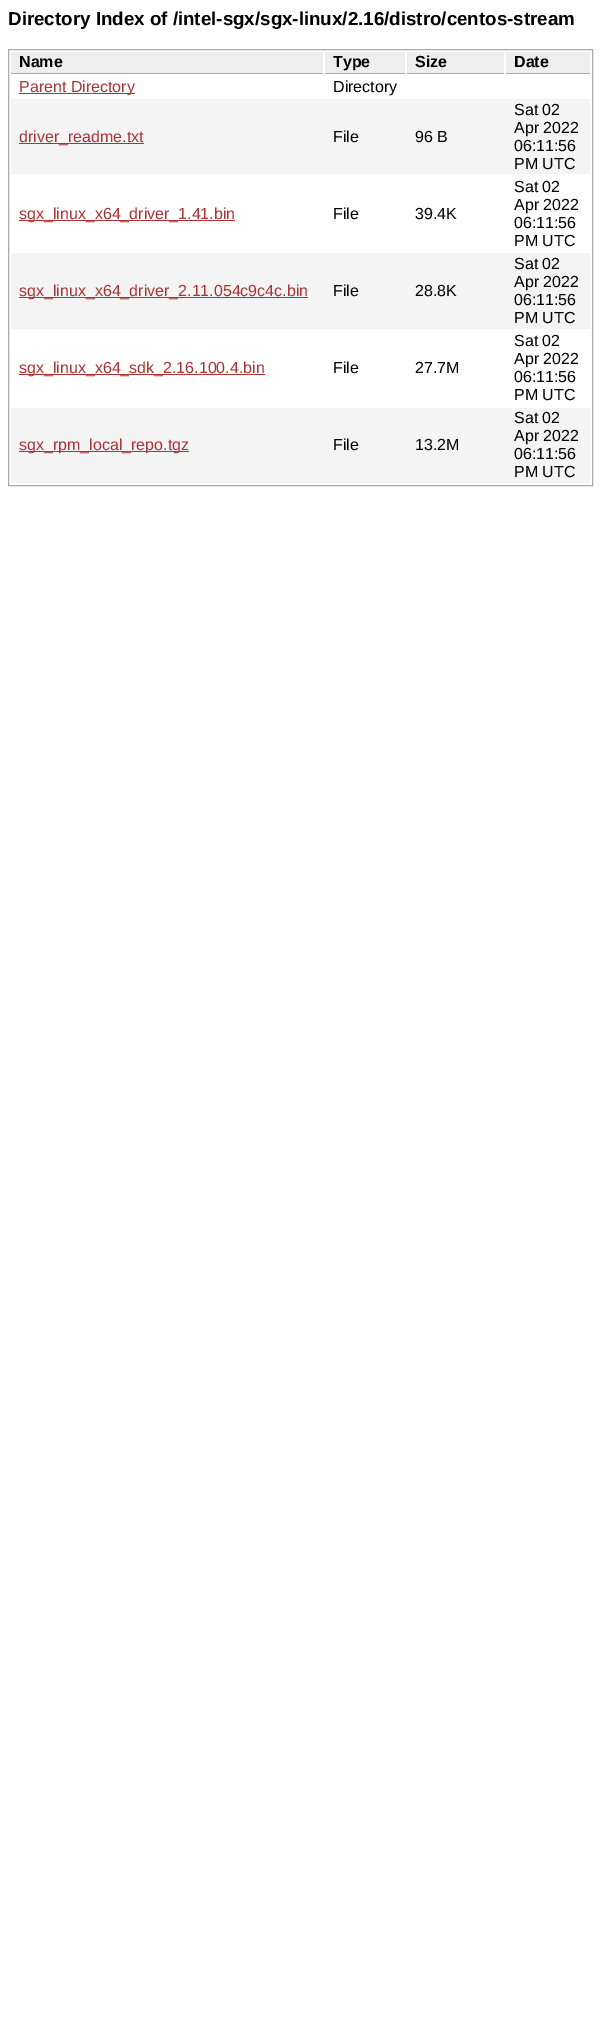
%!PS
<< /PageSize [601 2032] >> setpagedevice
/rgb { 3 { 255 div 3 1 roll } repeat setrgbcolor } def
/font { [ exch dup neg 0 0 3 -1 roll 0 0 ] selectfont } def
0 2032 translate 1 -1 scale
4 setmiterlimit
255 255 255 rgb
0 0 601 2032 rectfill
170 170 170 rgb
8.5 49.5 584 436 rectstroke
[
  [11 52 312 21 238 238 238]
  [11 73 312 1 170 170 170]
  [325 52 80 21 238 238 238]
  [325 73 80 1 170 170 170]
  [407 52 97 21 238 238 238]
  [407 73 97 1 170 170 170]
  [506 52 84 21 238 238 238]
  [506 73 84 1 170 170 170]
  [19 93 116 1 170 51 51]
  [11 99 579 75 244 244 244]
  [19 143 125 1 170 51 51]
  [19 220 216 1 170 51 51]
  [11 253 579 76 244 244 244]
  [19 297 289 1 170 51 51]
  [19 374 246 1 170 51 51]
  [11 408 579 75 244 244 244]
  [19 451 170 1 170 51 51]
] { aload pop rgb rectfill } forall
/LiberationSans-Bold 18.75 font
0 0 0 rgb
8 25 moveto (Directory Index of /intel-sgx/sgx-linux/2.16/distro/centos-stream) show
/LiberationSans-Bold 16 font
[
  [(Name) 19 67]
  [(Type) 333 67]
  [(Size) 415 67]
  [(Date) 514 67]
] { aload pop moveto show } forall
/LiberationSans-Regular 16 font
170 51 51 rgb
19 92 moveto (Parent Directory) show
0 0 0 rgb
333 92 moveto (Directory) show
170 51 51 rgb
19 142 moveto (driver_readme.txt) show
0 0 0 rgb
[
  [(File) 333 142]
  [(96 B) 415 142]
  [(Sat 02) 514 115]
  [(Apr 2022) 514 133]
  [(06:11:56) 514 151]
  [(PM UTC) 514 169]
] { aload pop moveto show } forall
170 51 51 rgb
19 219 moveto (sgx_linux_x64_driver_1.41.bin) show
0 0 0 rgb
[
  [(File) 333 219]
  [(39.4K) 415 219]
  [(Sat 02) 514 192]
  [(Apr 2022) 514 210]
  [(06:11:56) 514 228]
  [(PM UTC) 514 246]
] { aload pop moveto show } forall
170 51 51 rgb
19 296 moveto (sgx_linux_x64_driver_2.11.054c9c4c.bin) show
0 0 0 rgb
[
  [(File) 333 296]
  [(28.8K) 415 296]
  [(Sat 02) 514 269]
  [(Apr 2022) 514 287]
  [(06:11:56) 514 305]
  [(PM UTC) 514 323]
] { aload pop moveto show } forall
170 51 51 rgb
19 373 moveto (sgx_linux_x64_sdk_2.16.100.4.bin) show
0 0 0 rgb
[
  [(File) 333 373]
  [(27.7M) 415 373]
  [(Sat 02) 514 346]
  [(Apr 2022) 514 364]
  [(06:11:56) 514 382]
  [(PM UTC) 514 400]
] { aload pop moveto show } forall
170 51 51 rgb
19 450 moveto (sgx_rpm_local_repo.tgz) show
0 0 0 rgb
[
  [(File) 333 450]
  [(13.2M) 415 450]
  [(Sat 02) 514 423]
  [(Apr 2022) 514 441]
  [(06:11:56) 514 459]
  [(PM UTC) 514 477]
] { aload pop moveto show } forall
showpage
